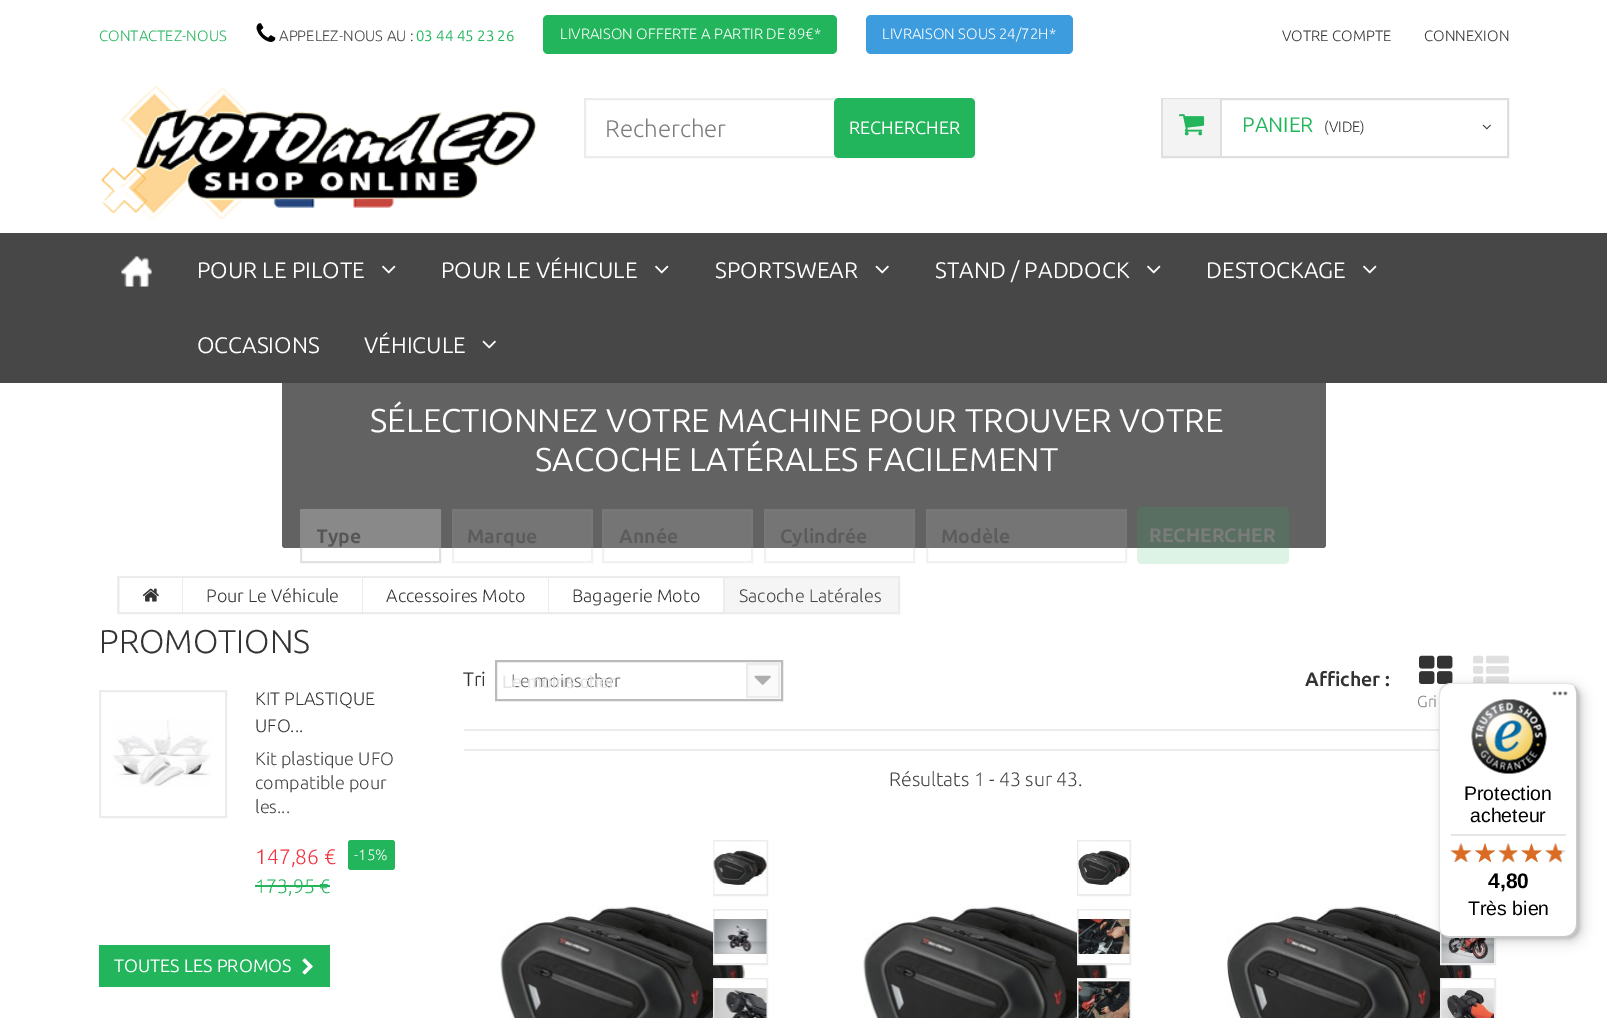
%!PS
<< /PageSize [1607 1018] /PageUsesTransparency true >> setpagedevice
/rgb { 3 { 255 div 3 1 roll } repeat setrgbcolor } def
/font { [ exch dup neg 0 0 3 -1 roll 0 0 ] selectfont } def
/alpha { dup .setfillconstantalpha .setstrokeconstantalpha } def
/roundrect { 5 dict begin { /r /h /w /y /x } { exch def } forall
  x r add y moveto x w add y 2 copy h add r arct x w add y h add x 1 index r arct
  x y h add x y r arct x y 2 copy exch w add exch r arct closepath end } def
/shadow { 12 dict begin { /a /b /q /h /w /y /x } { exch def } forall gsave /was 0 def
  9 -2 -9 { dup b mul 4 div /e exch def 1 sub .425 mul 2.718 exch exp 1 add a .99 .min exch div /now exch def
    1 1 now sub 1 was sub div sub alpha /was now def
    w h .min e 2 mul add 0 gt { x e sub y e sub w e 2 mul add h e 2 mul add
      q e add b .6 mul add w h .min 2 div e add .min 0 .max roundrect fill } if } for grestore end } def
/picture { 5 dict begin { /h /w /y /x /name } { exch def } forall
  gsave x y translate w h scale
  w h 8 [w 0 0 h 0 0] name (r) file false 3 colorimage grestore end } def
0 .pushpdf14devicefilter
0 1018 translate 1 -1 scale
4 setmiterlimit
255 255 255 rgb
0 0 1607 1018 rectfill
(img/1.rgb) 256 23 20 19 picture
35 181 92 rgb
543 15 294 39 5 roundrect fill
60 156 221 rgb
866 15 207 39 5 roundrect fill
(img/2.rgb) 101 85 436 134 picture
236 236 236 rgb
2 setlinewidth
585 99 389 58 rectstroke
35 181 92 rgb
834 98 141 60 5 roundrect fill
223 223 223 rgb
1162 99 346 58 rectstroke
243 243 243 rgb
1163 99 57 57 rectfill
223 223 223 rgb
1220 99 2 57 rectfill
(img/3.rgb) 1179 114 26 22 picture
(img/4.rgb) 1482 124 9 6 picture
71 71 71 rgb
0 233 1607 150 rectfill
(img/5.rgb) 121 256 31 31 picture
(img/6.rgb) 382 265 14 9 picture
(img/6.rgb) 655 265 14 9 picture
(img/7.rgb) 875 265 14 9 picture
(img/6.rgb) 1147 265 14 9 picture
(img/6.rgb) 1363 265 14 9 picture
(img/7.rgb) 482 340 14 9 picture
98 98 98 rgb
282 383 moveto 1326 383 lineto 1326 545 lineto 1326 546.5 1324.5 548 1323 548 curveto 285 548 lineto 283.5 548 282 546.5 282 545 curveto closepath fill
[
  [926 509 201 39 117 117 117]
  [764 509 151 39 117 117 117]
  [602 509 151 39 117 117 117]
  [452 509 141 39 117 117 117]
  [300 509 141 39 137 137 137]
] { aload pop rgb rectfill } forall
0.25 alpha
136 136 136 rgb
301 510 139 52 rectstroke
0.12 alpha
453 510 139 52 rectstroke
603 510 149 52 rectstroke
765 510 149 52 rectstroke
927 510 199 52 rectstroke
0.16 alpha
35 181 92 rgb
1137 507 152 57 5 roundrect fill
1 alpha
245 245 245 rgb
118 577 moveto 899 577 lineto 899 613 lineto 118 613 lineto closepath gsave fill grestore
236 236 236 rgb
stroke
255 255 255 rgb
120 578 62 34 rectfill
236 236 236 rgb
182 578 1 34 rectfill
(img/8.rgb) 142 588 17 14 picture
[
  [183 578 179 34 255 255 255]
  [362 578 1 34 236 236 236]
  [363 578 185 34 255 255 255]
  [548 578 1 34 236 236 236]
  [549 578 174 34 255 255 255]
  [723 578 2 34 236 236 236]
] { aload pop rgb rectfill } forall
100 691 126 126 rectstroke
(img/9.rgb) 113 719 98 68 picture
35 181 92 rgb
348 840 47 30 3 roundrect fill
255 885 75 2 rectfill
99 945 231 42 rectfill
(img/10.rgb) 302 958 11 17 picture
236 236 236 rgb
464 729 975 2 rectfill
187 187 187 rgb
496 661 286 39 rectstroke
250 250 250 rgb
747 664 moveto 779 664 lineto 779 697 lineto 747 697 lineto closepath gsave fill grestore
236 236 236 rgb
stroke
(img/11.rgb) 754 675 17 10 picture
(img/12.rgb) 1473 655 36 28 picture
(img/13.rgb) 1419 655 34 29 picture
464 749 975 2 rectfill
714 841 53 54 rectstroke
(img/14.rgb) 713 841 54 53 picture
(img/17.rgb) 500 906 245 112 picture
714 910 53 54 rectstroke
(img/15.rgb) 713 910 54 53 picture
714 979 53 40 rectstroke
(img/16.rgb) 713 979 54 39 picture
1078 841 52 54 rectstroke
(img/18.rgb) 1078 841 52 53 picture
(img/21.rgb) 863 906 245 112 picture
1078 910 52 54 rectstroke
(img/19.rgb) 1078 910 52 53 picture
1078 979 52 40 rectstroke
(img/20.rgb) 1078 979 52 39 picture
(img/22.rgb) 1227 906 245 112 picture
1441 910 54 54 rectstroke
(img/23.rgb) 1441 932 53 31 picture
1441 979 54 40 rectstroke
(img/24.rgb) 1441 979 53 39 picture
0 0 0 rgb
1443 687 140 255 12 6 0.15 shadow
1440 684 140 255 12 1.5 0.15 shadow
255 255 255 rgb
1439 683 139 255 12 roundrect fill
0.1 alpha
0 0 0 rgb
1452 684 moveto 1568 684 lineto 1573 685 lineto 1571 684 1568 683 1566 683 curveto 1451 683 lineto 1444 683 1439 688 1439 695 curveto 1439 926 lineto 1439 929 1440 932 1442 934 curveto 1441 932 1440 930 1440 927 curveto 1440 696 lineto 1440 689 1445 684 1452 684 curveto closepath fill
0.2 alpha
1442 934 moveto 1444 936 1447 938 1451 938 curveto 1566 938 lineto 1573 938 1578 933 1578 926 curveto 1578 695 lineto 1578 691 1576 688 1574 686 curveto 1575 688 1576 690 1576 693 curveto 1576 924 lineto 1576 931 1571 936 1564 936 curveto 1449 936 lineto 1446 936 1444 935 1442 934 curveto closepath fill
50 50 50 rgb
1442 934 moveto 1444 936 1447 938 1451 938 curveto 1566 938 lineto 1573 938 1578 933 1578 926 curveto 1578 695 lineto 1578 692 1577 689 1575 687 curveto 1576 689 1577 691 1577 694 curveto 1577 925 lineto 1577 931 1572 937 1565 937 curveto 1450 937 lineto 1447 937 1444 936 1442 934 curveto closepath fill
0.3 alpha
255 255 255 rgb
1442 934 moveto 1444 936 1447 938 1451 938 curveto 1566 938 lineto 1573 938 1578 933 1578 926 curveto 1578 695 lineto 1578 692 1577 689 1575 687 curveto 1576 689 1577 691 1577 694 curveto 1577 925 lineto 1577 931 1572 937 1565 937 curveto 1450 937 lineto 1447 937 1444 936 1442 934 curveto closepath fill
1 alpha
(img/25.rgb) 1552 691 16 5 picture
(img/26.rgb) 1471 699 76 75 picture
229 229 229 rgb
1451 834 115 2 rectfill
(img/27.rgb) 1450 843 22 19 picture
(img/28.rgb) 1475 843 20 19 picture
(img/29.rgb) 1498 843 20 20 picture
(img/30.rgb) 1521 843 21 19 picture
(img/31.rgb) 1545 843 21 20 picture
(img/32.rgb) 1450 843 22 19 picture
(img/33.rgb) 1475 843 20 20 picture
(img/34.rgb) 1498 843 20 19 picture
(img/35.rgb) 1521 843 21 19 picture
(img/36.rgb) 1545 843 17 19 picture
/Ubuntu-Light 15 font
35 181 92 rgb
99 41 moveto (CONTACTEZ-NOUS) show
68 68 68 rgb
279 41 moveto (APPELEZ-NOUS AU :) show
/Ubuntu-Regular 15 font
35 181 92 rgb
416 41 moveto (03 44 45 23 26) show
/Ubuntu-Light 15 font
255 255 255 rgb
560 39 moveto (LIVRAISON OFFERTE A PARTIR DE 89€*) show
882 39 moveto (LIVRAISON SOUS 24/72H*) show
51 51 51 rgb
1282 41 moveto (VOTRE COMPTE) show
1424 41 moveto (CONNEXION) show
/Ubuntu-Light 24 font
124 124 124 rgb
605 137 moveto (Rechercher) show
/Ubuntu-Regular 18 font
255 255 255 rgb
849 134 moveto (RECHERCHER) show
/Ubuntu-Regular 21 font
35 181 92 rgb
1242 132 moveto (PANIER) show
/Ubuntu-Light 15 font
51 51 51 rgb
1324 132 moveto (\(VIDE\)) show
/Ubuntu-Regular 22.5 font
255 255 255 rgb
[
  [(POUR LE PILOTE) 197 278]
  [(POUR LE VÉHICULE) 441 278]
  [(SPORTSWEAR) 715 278]
  [(STAND / PADDOCK) 935 278]
  [(DESTOCKAGE) 1206 278]
  [(OCCASIONS) 197 353]
  [(VÉHICULE) 364 353]
] { aload pop moveto show } forall
/Ubuntu-Regular 33 font
370 432 moveto (SÉLECTIONNEZ VOTRE MACHINE POUR TROUVER VOTRE) show
535 471 moveto (SACOCHE LATÉRALES FACILEMENT) show
gsave
317 522 420 29 rectclip
/Ubuntu-Bold 19.5 font
86 86 86 rgb
316 543 moveto (Type) show
grestore
/Ubuntu-Bold 19.5 font
92 92 92 rgb
[
  [(Marque) 467 543]
  [(Année) 619 543]
  [(Cylindrée) 780 543]
  [(Modèle) 941 543]
] { aload pop moveto show } forall
124 124 124 rgb
1149 542 moveto (RECHERCHER) show
/Ubuntu-Light 18 font
51 51 51 rgb
[
  [(Pour Le Véhicule) 206 602]
  [(Accessoires Moto) 386 602]
  [(Bagagerie Moto) 572 602]
] { aload pop moveto show } forall
68 68 68 rgb
739 602 moveto (Sacoche Latérales) show
/Ubuntu-Light 33 font
51 51 51 rgb
99 653 moveto (PROMOTIONS) show
/Ubuntu-Light 18 font
255 705 moveto (KIT PLASTIQUE) show
255 732 moveto (UFO...) show
68 68 68 rgb
[
  [(Kit plastique UFO) 255 765]
  [(compatible pour) 255 789]
  [(les...) 255 813]
] { aload pop moveto show } forall
/Ubuntu-Light 21 font
241 51 64 rgb
255 864 moveto (147,86 €) show
/Ubuntu-Light 15 font
255 255 255 rgb
354 860 moveto (-15%) show
/Ubuntu-Light 19.5 font
35 181 92 rgb
255 893 moveto (173,95 €) show
/Ubuntu-Regular 18 font
255 255 255 rgb
114 972 moveto (TOUTES LES PROMOS) show
/Ubuntu-Regular 19.5 font
51 51 51 rgb
463 686 moveto (Tri) show
/Ubuntu-Light 18 font
102 102 102 rgb
511 687 moveto (Le moins cher) show
/LiberationSans-Regular 18 font
228 228 228 rgb
502 688 moveto (Le moins cher) show
/Ubuntu-Bold 19.5 font
51 51 51 rgb
1305 686 moveto (Afficher :) show
/Ubuntu-Light 16 font
124 124 124 rgb
1417 707 moveto (Gri) show
/Ubuntu-Light 19.5 font
68 68 68 rgb
889 786 moveto (Résultats 1 - 43 sur 43.) show
/LiberationSans-Regular 19.5 font
0 0 0 rgb
1464 800 moveto (Protection) show
1470 822 moveto (acheteur) show
/LiberationSans-Bold 21 font
1488 888 moveto (4,80) show
/LiberationSans-Regular 19.5 font
1468 915 moveto (Très bien) show
.poppdf14devicefilter showpage
